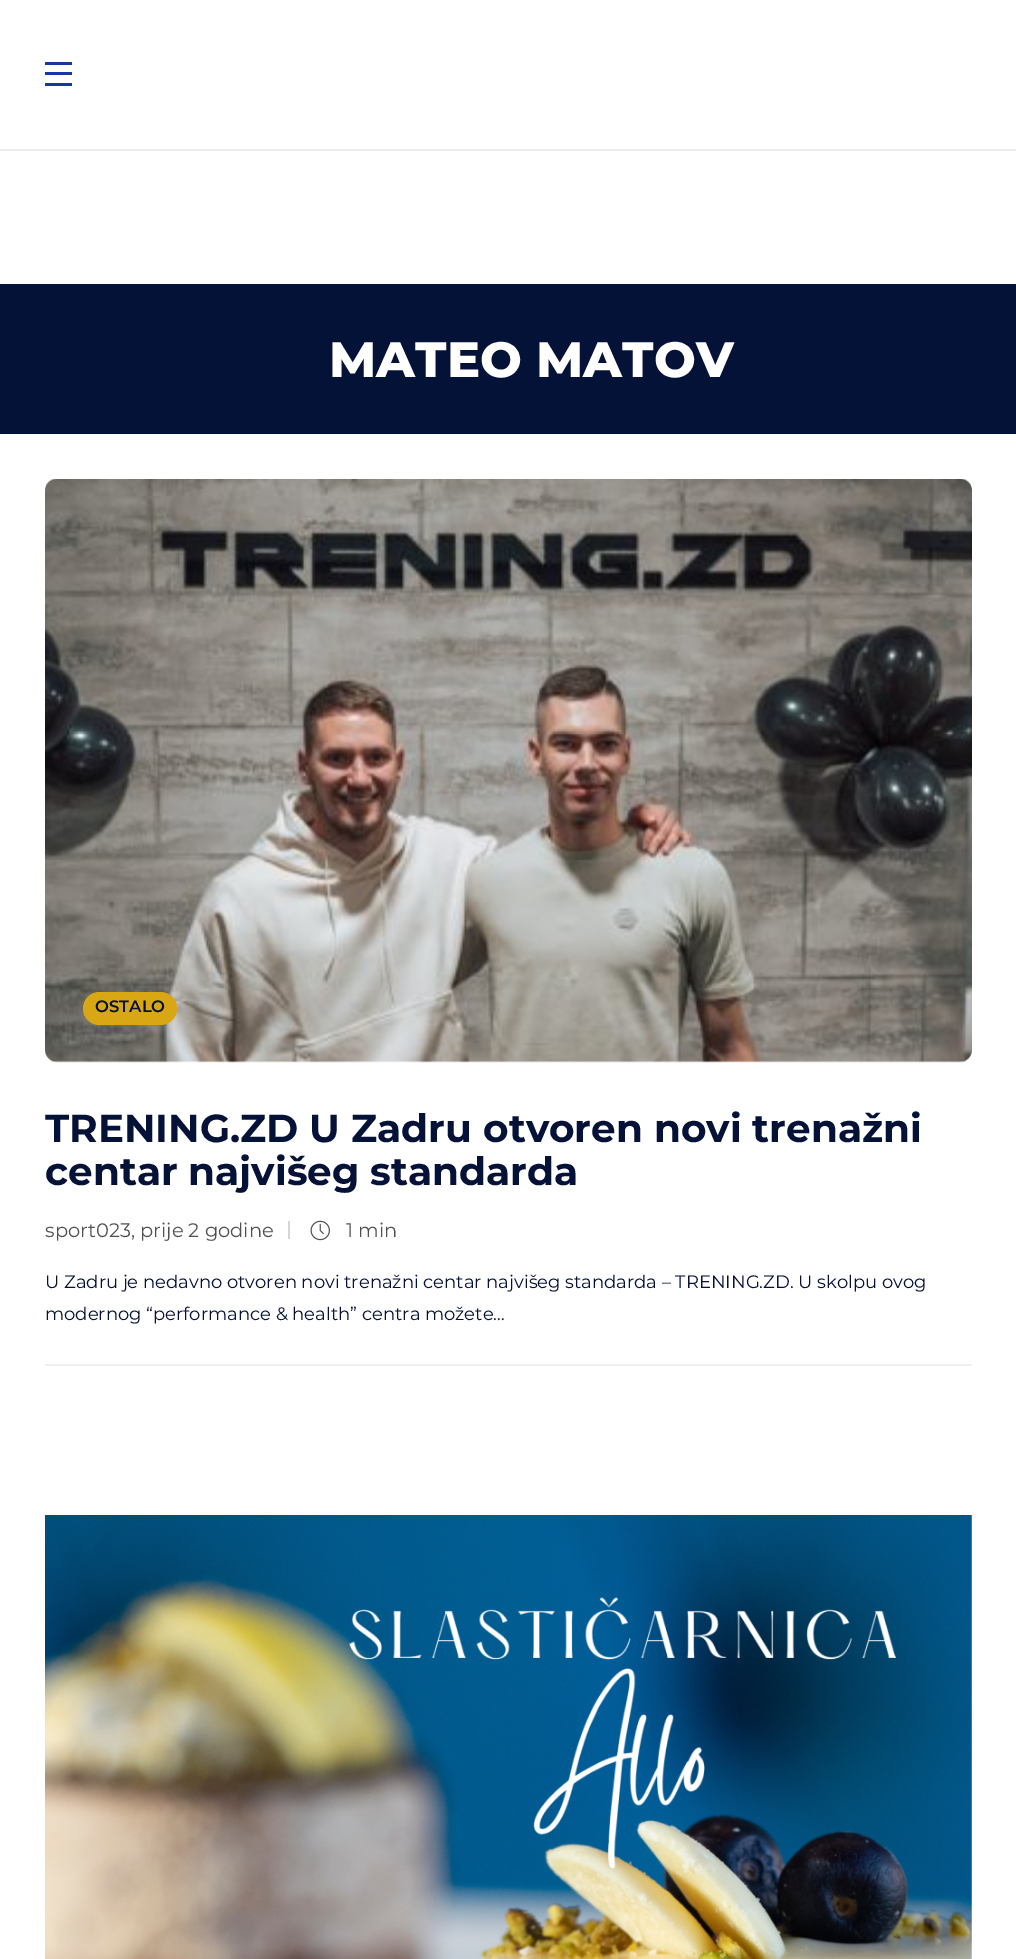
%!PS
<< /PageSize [1016 1959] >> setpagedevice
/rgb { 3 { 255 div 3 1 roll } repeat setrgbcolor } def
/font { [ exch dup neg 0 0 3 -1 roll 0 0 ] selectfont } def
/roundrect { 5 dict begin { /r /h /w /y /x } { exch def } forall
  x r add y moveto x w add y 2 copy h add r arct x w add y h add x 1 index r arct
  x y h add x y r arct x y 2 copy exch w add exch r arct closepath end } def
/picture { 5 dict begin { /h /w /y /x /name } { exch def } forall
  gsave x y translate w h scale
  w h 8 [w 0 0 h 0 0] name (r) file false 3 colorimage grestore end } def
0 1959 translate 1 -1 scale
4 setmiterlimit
255 255 255 rgb
0 0 1016 1959 rectfill
[
  [0 149 1016 2 237 237 237]
  [45 62 27 3 21 56 162]
  [45 72 27 3 21 56 162]
  [45 83 27 3 21 56 162]
  [0 284 1016 150 5 18 56]
  [45 1364 927 2 240 240 240]
] { aload pop rgb rectfill } forall
(img/1.rgb) 45 479 927 584 picture
217 167 20 rgb
83 992 94 33 16.5 roundrect fill
214 214 214 rgb
288 1221 2 18 rectfill
(img/2.rgb) 310 1220 20 21 picture
(img/3.rgb) 45 1515 927 444 picture
/Montserrat-ExtraBold 49.5 font
255 255 255 rgb
329 377 moveto (MATEO MATOV) show
/Montserrat-SemiBold 16.5 font
5 18 56 rgb
95 1012 moveto (OSTALO) show
/Montserrat-Bold 39 font
45 1142 moveto (TRENING.ZD U Zadru otvoren novi trenažni) show
45 1185 moveto (centar najvišeg standarda) show
/Montserrat-Regular 19.5 font
80 80 80 rgb
45 1237 moveto (sport023, prije 2 godine) show
346 1237 moveto (1 min) show
/Montserrat-Regular 18 font
5 18 56 rgb
45 1288 moveto (U Zadru je nedavno otvoren novi trenažni centar najvišeg standarda – TRENING.ZD. U skolpu ovog) show
45 1320 moveto (modernog “performance & health” centra možete…) show
showpage
